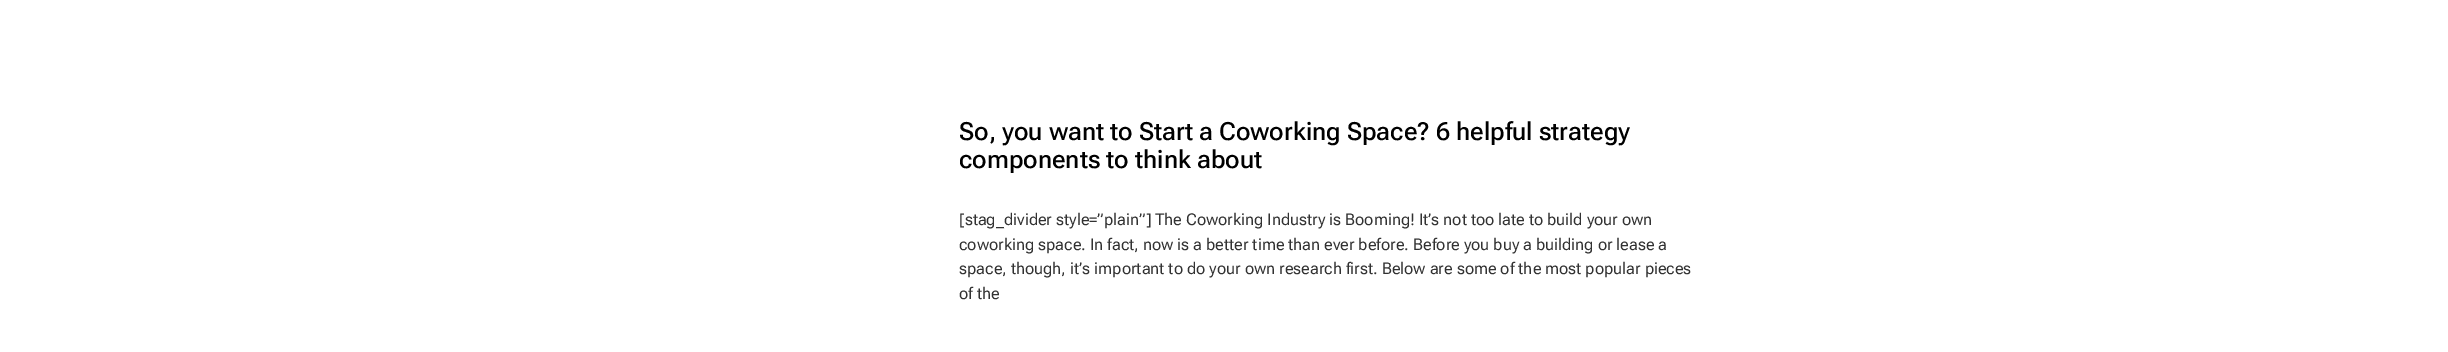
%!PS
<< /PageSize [2448 352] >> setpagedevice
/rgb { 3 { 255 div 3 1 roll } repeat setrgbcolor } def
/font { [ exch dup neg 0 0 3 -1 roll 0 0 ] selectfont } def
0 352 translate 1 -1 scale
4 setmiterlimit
255 255 255 rgb
0 0 2448 352 rectfill
/RobotoFlex-Medium 25 font
0 0 0 rgb
959 140 moveto (So, you want to Start a Coworking Space? 6 helpful strategy) show
959 168 moveto (components to think about) show
/RobotoFlex-Regular 16.25 font
50 50 50 rgb
[
  [([stag_divider style=”plain”] The Coworking Industry is Booming! It’s not too late to build your own) 959 225]
  [(coworking space. In fact, now is a better time than ever before. Before you buy a building or lease a) 959 250]
  [(space, though, it’s important to do your own research first. Below are some of the most popular pieces) 959 274]
  [(of the) 959 299]
] { aload pop moveto show } forall
showpage
